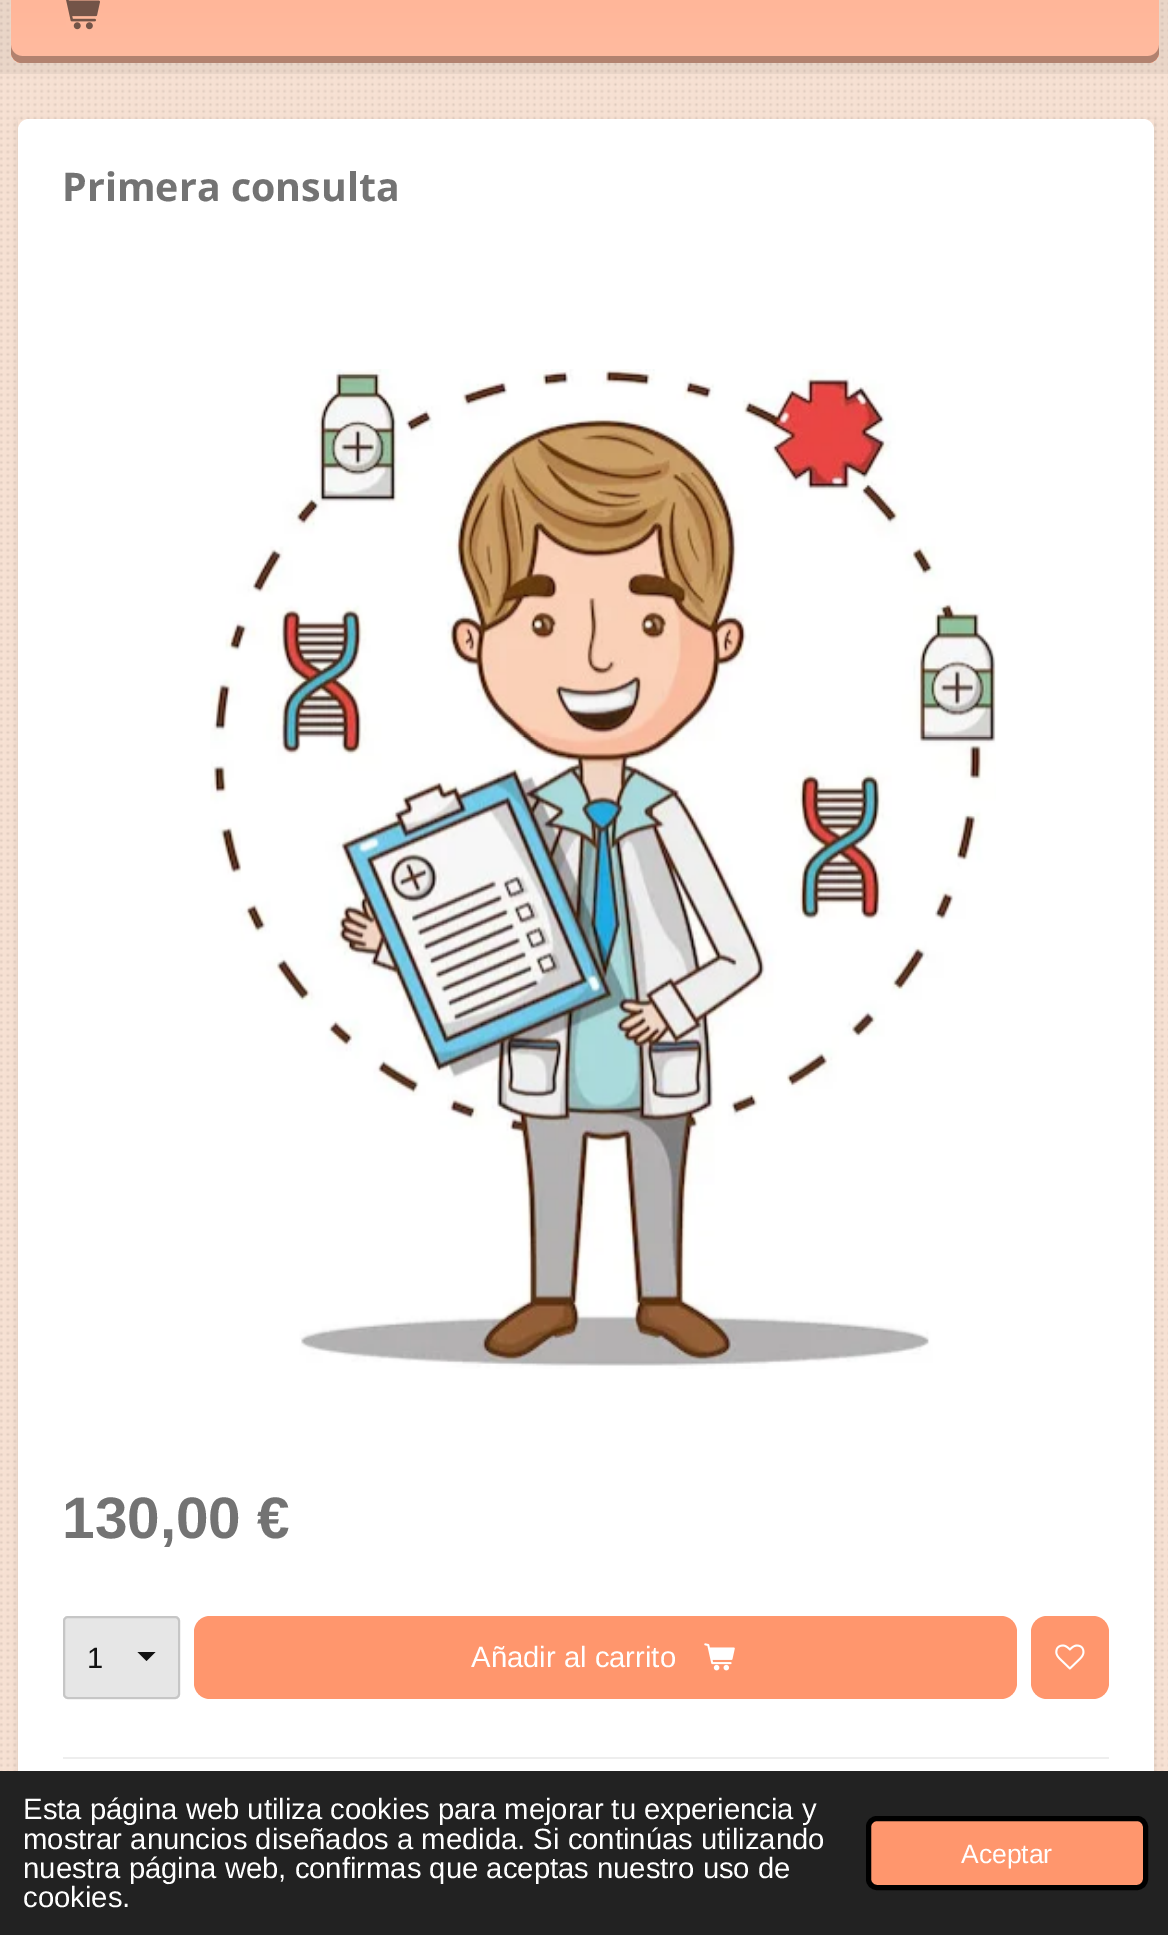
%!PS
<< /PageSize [1168 1935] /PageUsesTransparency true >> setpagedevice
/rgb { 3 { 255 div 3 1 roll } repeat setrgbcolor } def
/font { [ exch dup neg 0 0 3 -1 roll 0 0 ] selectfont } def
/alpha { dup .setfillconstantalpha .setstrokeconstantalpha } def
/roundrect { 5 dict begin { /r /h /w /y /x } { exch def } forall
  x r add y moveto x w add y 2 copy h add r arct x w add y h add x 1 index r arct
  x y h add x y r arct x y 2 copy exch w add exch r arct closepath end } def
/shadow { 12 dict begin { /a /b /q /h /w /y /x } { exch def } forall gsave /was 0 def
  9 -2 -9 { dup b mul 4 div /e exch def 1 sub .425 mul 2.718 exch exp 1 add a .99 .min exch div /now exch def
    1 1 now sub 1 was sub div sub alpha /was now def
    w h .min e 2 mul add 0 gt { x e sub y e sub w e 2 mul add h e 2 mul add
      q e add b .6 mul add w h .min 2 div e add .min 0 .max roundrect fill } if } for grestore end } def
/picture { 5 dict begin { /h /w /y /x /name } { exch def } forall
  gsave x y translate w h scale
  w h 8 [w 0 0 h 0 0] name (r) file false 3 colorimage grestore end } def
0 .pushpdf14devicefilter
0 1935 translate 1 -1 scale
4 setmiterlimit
246 224 210 rgb
0 0 1168 1935 rectfill
(img/1.rgb) 0 2 1168 1769 picture
0.05 alpha
0 0 0 rgb
0 0 1168 74 rectfill
1 alpha
gsave 11 -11 1148 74 11 roundrect clip newpath
<< /ShadingType 2 /ColorSpace /DeviceRGB /Coords [585 -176 585 63] /Extend [true true] /Function << /FunctionType 2 /Domain [0 1] /C0 [1 0.663 0.525] /C1 [1 0.733 0.627] /N 1 >> >> shfill grestore
0.3 alpha
11 45 moveto 11 52 lineto 11 58 16 63 22 63 curveto 1148 63 lineto 1154 63 1159 58 1159 52 curveto 1159 45 lineto 1159 51 1154 56 1148 56 curveto 22 56 lineto 16 56 11 51 11 45 curveto closepath fill
1 alpha
(img/2.rgb) 66 0 34 30 picture
gsave
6 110 moveto 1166 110 lineto 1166 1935 lineto 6 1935 lineto closepath 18 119 moveto 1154 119 lineto 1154 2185 lineto 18 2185 lineto closepath eoclip newpath
18 122 1136 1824 0 3.5 0.1 shadow
grestore
255 255 255 rgb
18 119 1136 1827 11 roundrect fill
(img/3.rgb) 210 369 786 1000 picture
230 230 230 rgb
63 1616 117 83 5 roundrect fill
17 17 17 rgb
146.5 1661 moveto 137.5 1652 lineto 155.5 1652 lineto closepath fill
0.5 alpha
166 166 166 rgb
2 setlinewidth
64 1617 115 81 4 roundrect stroke
1 alpha
255 150 109 rgb
194 1616 823 83 16 roundrect fill
(img/4.rgb) 704 1643 31 28 picture
1031 1616 78 83 16 roundrect fill
(img/5.rgb) 1055 1644 30 26 picture
238 238 238 rgb
63 1757 1046 2 rectfill
34 34 34 rgb
0 1771 1168 164 rectfill
255 150 109 rgb
868.5 1818.5 277 69 8.5 roundrect gsave fill grestore
0 0 0 rgb
5 setlinewidth
stroke
/OpenSans-Bold 39.4 font
115 115 115 rgb
62 201 moveto (Primera consulta) show
/LiberationSans-Bold 58.5 font
62 1538 moveto (130,00 €) show
/LiberationSans-Regular 29.25 font
17 17 17 rgb
87 1668 moveto (1) show
255 255 255 rgb
[
  [(Añadir al carrito) 471 1667]
  [(Esta página web utiliza cookies para mejorar tu experiencia y) 23 1819]
  [(mostrar anuncios diseñados a medida. Si continúas utilizando) 23 1849]
  [(nuestra página web, confirmas que aceptas nuestro uso de) 23 1878]
  [(cookies.) 23 1907]
] { aload pop moveto show } forall
/LiberationSans-Regular 26.5 font
961 1863 moveto (Aceptar) show
.poppdf14devicefilter showpage
